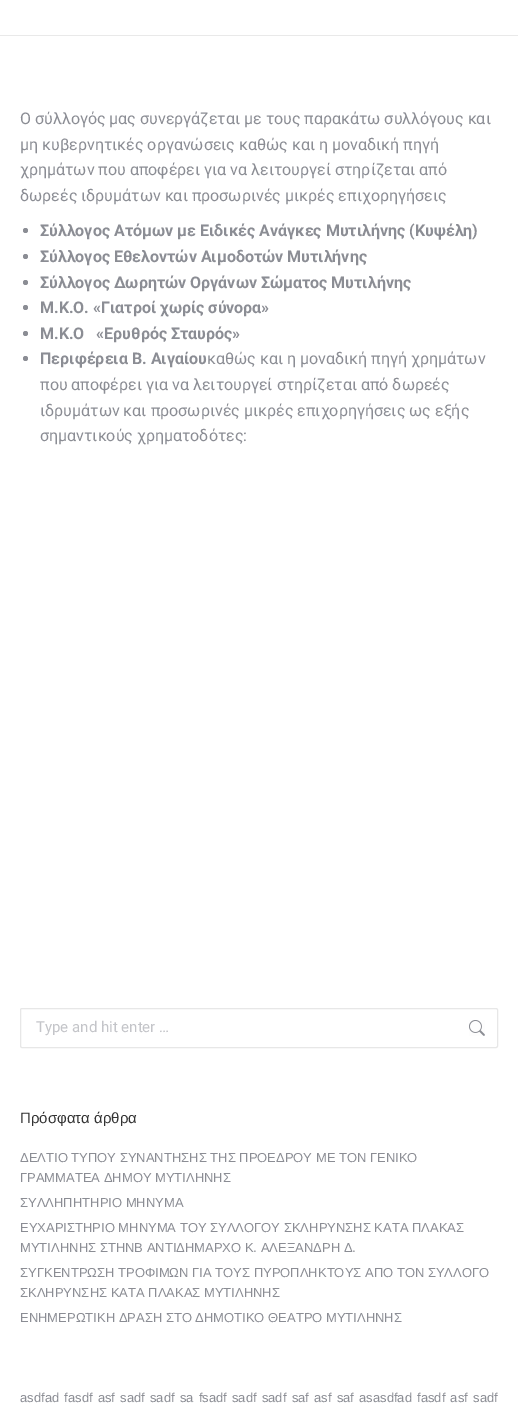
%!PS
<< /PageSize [518 1413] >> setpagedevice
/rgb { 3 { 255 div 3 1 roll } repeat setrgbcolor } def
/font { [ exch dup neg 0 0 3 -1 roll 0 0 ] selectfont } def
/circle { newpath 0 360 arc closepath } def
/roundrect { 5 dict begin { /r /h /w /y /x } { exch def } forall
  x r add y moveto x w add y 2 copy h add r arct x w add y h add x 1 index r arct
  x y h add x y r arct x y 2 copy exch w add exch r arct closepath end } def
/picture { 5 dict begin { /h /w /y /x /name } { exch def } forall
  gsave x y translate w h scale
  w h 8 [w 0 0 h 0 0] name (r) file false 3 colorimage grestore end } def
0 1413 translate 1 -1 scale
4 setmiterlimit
255 255 255 rgb
0 0 518 1413 rectfill
233 233 233 rgb
0 35 518 1 rectfill
139 141 148 rgb
25.5 230.5 2.5 circle fill
25.5 256.5 2.5 circle fill
25.5 282.5 2.5 circle fill
25.5 307.5 2.5 circle fill
25.5 333.5 2.5 circle fill
25.5 358.5 2.5 circle fill
231 231 231 rgb
20.5 1008.5 477 39 1.5 roundrect stroke
(img/1.rgb) 469 1020 16 16 picture
/Roboto-Regular 16 font
139 141 148 rgb
[
  [(Ο σύλλογός μας συνεργάζεται με τους παρακάτω συλλόγους και) 20 124]
  [(μη κυβερνητικές οργανώσεις καθώς και η μοναδική πηγή) 20 150]
  [(χρημάτων που αποφέρει για να λειτουργεί στηρίζεται από) 20 175]
  [(δωρεές ιδρυμάτων και προσωρινές μικρές επιχορηγήσεις) 20 201]
] { aload pop moveto show } forall
/Roboto-Bold 16 font
[
  [(Σύλλογος Ατόμων με Ειδικές Ανάγκες Μυτιλήνης \(Κυψέλη\)) 40 236]
  [(Σύλλογος Εθελοντών Αιμοδοτών Μυτιλήνης) 40 262]
  [(Σύλλογος Δωρητών Οργάνων Σώματος Μυτιλήνης) 40 288]
  [(Μ.Κ.Ο. «Γιατροί χωρίς σύνορα») 40 313]
  [(Μ.Κ.Ο   «Ερυθρός Σταυρός») 40 339]
  [(Περιφέρεια Β. Αιγαίου) 40 364]
] { aload pop moveto show } forall
/Roboto-Regular 16 font
[
  [(καθώς και η μοναδική πηγή χρημάτων) 207 364]
  [(που αποφέρει για να λειτουργεί στηρίζεται από δωρεές) 40 390]
  [(ιδρυμάτων και προσωρινές μικρές επιχορηγήσεις ως εξής) 40 416]
  [(σημαντικούς χρηματοδότες:) 40 441]
] { aload pop moveto show } forall
/Roboto-Regular 15 font
196 197 201 rgb
36 1032 moveto (Type and hit enter …) show
/LiberationSans-Regular 15 font
51 51 51 rgb
20 1123 moveto (Πρόσφατα άρθρα) show
/LiberationSans-Regular 13 font
139 141 148 rgb
[
  [(ΔΕΛΤΙΟ ΤΥΠΟΥ ΣΥΝΑΝΤΗΣΗΣ ΤΗΣ ΠΡΟΕΔΡΟΥ ΜΕ ΤΟΝ ΓΕΝΙΚΟ) 20 1162]
  [(ΓΡΑΜΜΑΤΕΑ ΔΗΜΟΥ ΜΥΤΙΛΗΝΗΣ) 20 1182]
  [(ΣΥΛΛΗΠΗΤΗΡΙΟ ΜΗΝΥΜΑ) 20 1207]
  [(ΕΥΧΑΡΙΣΤΗΡΙΟ ΜΗΝΥΜΑ ΤΟΥ ΣΥΛΛΟΓΟΥ ΣΚΛΗΡΥΝΣΗΣ ΚΑΤΑ ΠΛΑΚΑΣ) 20 1232]
  [(ΜΥΤΙΛΗΝΗΣ ΣΤΗΝΒ ΑΝΤΙΔΗΜΑΡΧΟ Κ. ΑΛΕΞΑΝΔΡΗ Δ.) 20 1252]
  [(ΣΥΓΚΕΝΤΡΩΣΗ ΤΡΟΦΙΜΩΝ ΓΙΑ ΤΟΥΣ ΠΥΡΟΠΛΗΚΤΟΥΣ ΑΠΟ ΤΟΝ ΣΥΛΛΟΓΟ) 20 1277]
  [(ΣΚΛΗΡΥΝΣΗΣ ΚΑΤΑ ΠΛΑΚΑΣ ΜΥΤΙΛΗΝΗΣ) 20 1297]
  [(ΕΝΗΜΕΡΩΤΙΚΗ ΔΡΑΣΗ ΣΤΟ ΔΗΜΟΤΙΚΟ ΘΕΑΤΡΟ ΜΥΤΙΛΗΝΗΣ) 20 1322]
] { aload pop moveto show } forall
20 1402 moveto 1.6 0 32 (asdfad fasdf asf sadf sadf sa fsadf sadf sadf saf asf saf asasdfad fasdf asf sadf) widthshow
showpage
